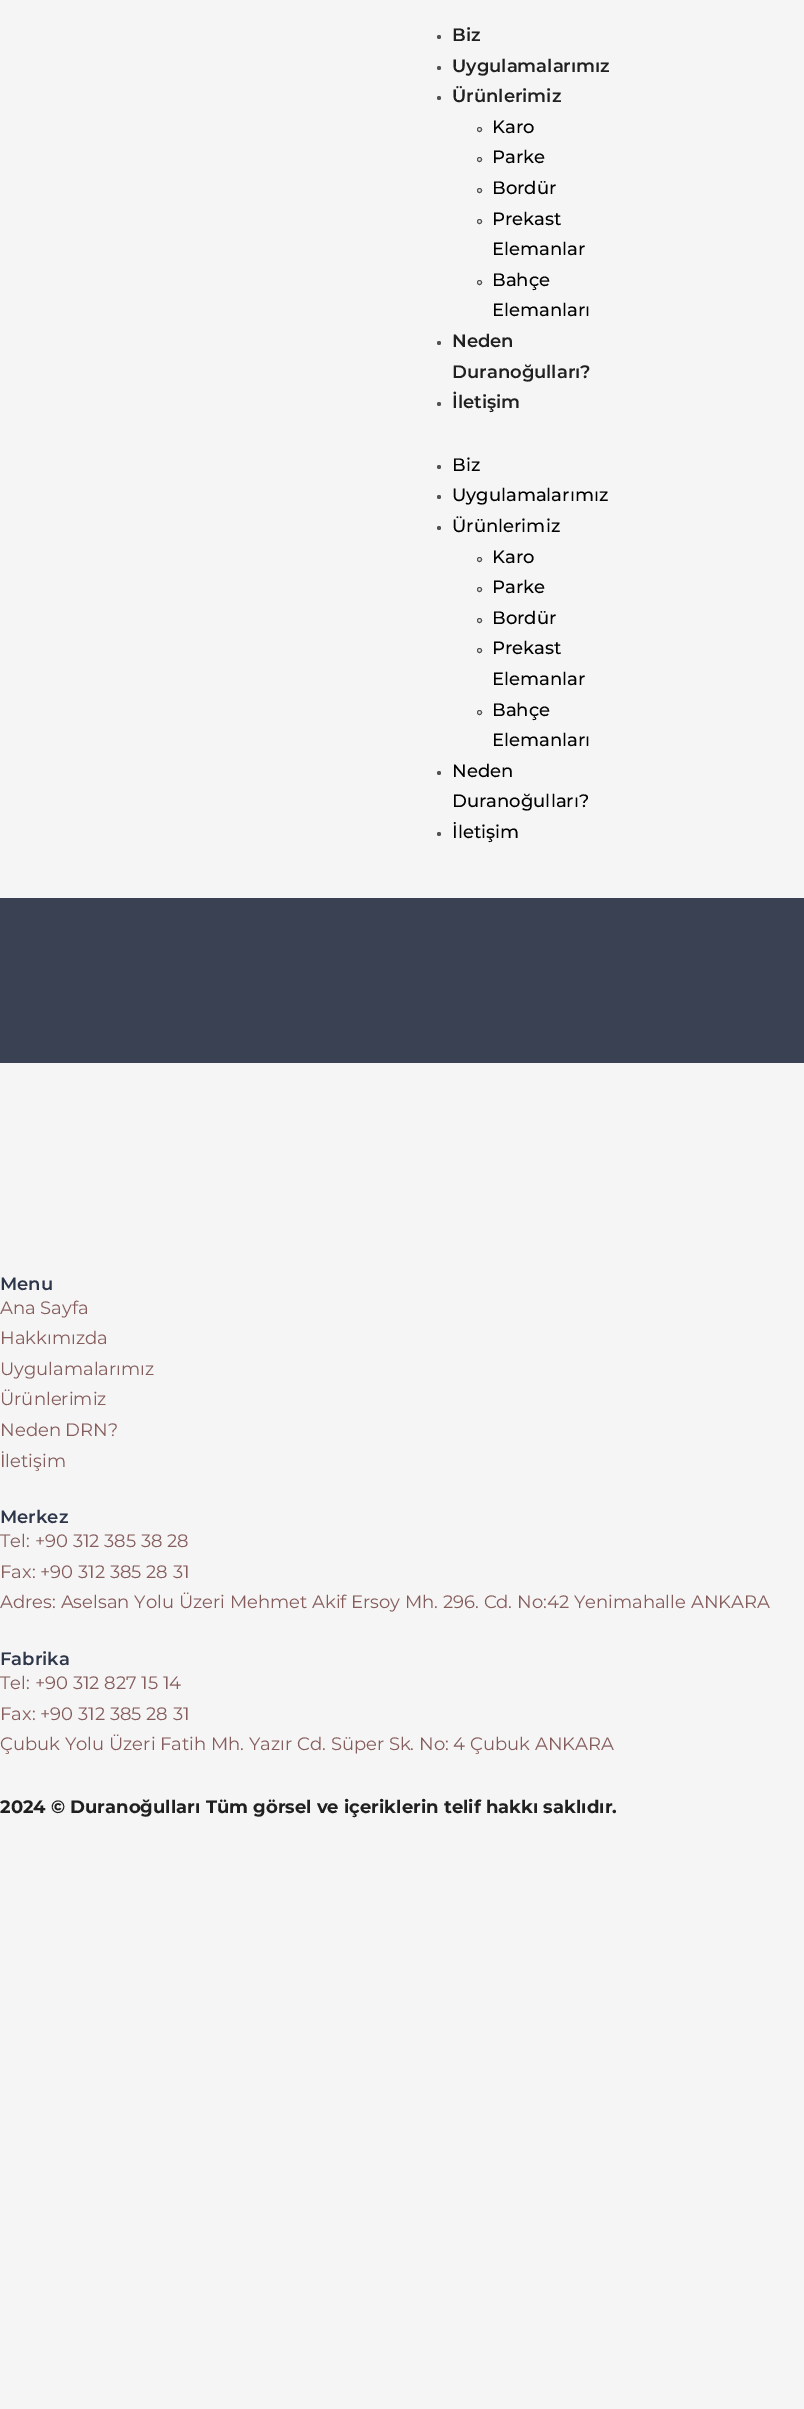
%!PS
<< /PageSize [804 2409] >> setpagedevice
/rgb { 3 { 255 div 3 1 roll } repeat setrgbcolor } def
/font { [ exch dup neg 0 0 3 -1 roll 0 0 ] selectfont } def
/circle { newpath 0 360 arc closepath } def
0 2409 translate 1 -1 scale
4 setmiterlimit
245 245 245 rgb
0 0 804 2409 rectfill
83 83 83 rgb
439 37 2 circle fill
439 68 2 circle fill
439 98 2 circle fill
479.5 129.5 2 circle stroke
479.5 159.5 2 circle stroke
479.5 190.5 2 circle stroke
479.5 221.5 2 circle stroke
479.5 282.5 2 circle stroke
439 343 2 circle fill
439 404 2 circle fill
439 467 2 circle fill
439 497 2 circle fill
439 528 2 circle fill
479.5 559.5 2 circle stroke
479.5 589.5 2 circle stroke
479.5 620.5 2 circle stroke
479.5 650.5 2 circle stroke
479.5 712.5 2 circle stroke
439 773 2 circle fill
439 834 2 circle fill
58 65 83 rgb
0 898 804 165 rectfill
/Montserrat-SemiBold 18 font
32 32 32 rgb
[
  [(Biz) 452 41]
  [(Uygulamalarımız) 452 72]
  [(Ürünlerimiz) 452 102]
] { aload pop moveto show } forall
/Montserrat-Medium 18 font
0 0 0 rgb
[
  [(Karo) 492 133]
  [(Parke) 492 163]
  [(Bordür) 492 194]
  [(Prekast) 492 225]
  [(Elemanlar) 492 255]
  [(Bahçe) 492 286]
  [(Elemanları) 492 316]
] { aload pop moveto show } forall
/Montserrat-SemiBold 18 font
32 32 32 rgb
[
  [(Neden) 452 347]
  [(Duranoğulları?) 452 378]
  [(İletişim) 452 408]
] { aload pop moveto show } forall
/Montserrat-Medium 18 font
0 0 0 rgb
[
  [(Biz) 452 471]
  [(Uygulamalarımız) 452 501]
  [(Ürünlerimiz) 452 532]
  [(Karo) 492 563]
  [(Parke) 492 593]
  [(Bordür) 492 624]
  [(Prekast) 492 654]
  [(Elemanlar) 492 685]
  [(Bahçe) 492 716]
  [(Elemanları) 492 746]
  [(Neden) 452 777]
  [(Duranoğulları?) 452 807]
  [(İletişim) 452 838]
] { aload pop moveto show } forall
/Montserrat-SemiBold 18 font
46 54 73 rgb
0 1290 moveto (Menu) show
/Montserrat-Regular 18 font
134 93 93 rgb
[
  [(Ana Sayfa) 0 1314]
  [(Hakkımızda) 0 1344]
  [(Uygulamalarımız) 0 1375]
  [(Ürünlerimiz) 0 1405]
  [(Neden DRN?) 0 1436]
  [(İletişim) 0 1467]
] { aload pop moveto show } forall
/Montserrat-SemiBold 18 font
46 54 73 rgb
0 1523 moveto (Merkez) show
/Montserrat-Regular 18 font
134 93 93 rgb
[
  [(Tel: +90 312 385 38 28) 0 1547]
  [(Fax: +90 312 385 28 31) 0 1578]
  [(Adres: Aselsan Yolu Üzeri Mehmet Akif Ersoy Mh. 296. Cd. No:42 Yenimahalle ANKARA) 0 1608]
] { aload pop moveto show } forall
/Montserrat-SemiBold 18 font
46 54 73 rgb
0 1665 moveto (Fabrika) show
/Montserrat-Regular 18 font
134 93 93 rgb
[
  [(Tel: +90 312 827 15 14) 0 1689]
  [(Fax: +90 312 385 28 31) 0 1720]
  [(Çubuk Yolu Üzeri Fatih Mh. Yazır Cd. Süper Sk. No: 4 Çubuk ANKARA) 0 1750]
] { aload pop moveto show } forall
/Montserrat-Bold 18 font
32 32 32 rgb
0 1813 moveto (2024 © Duranoğulları Tüm görsel ve içeriklerin telif hakkı saklıdır.) show
showpage
